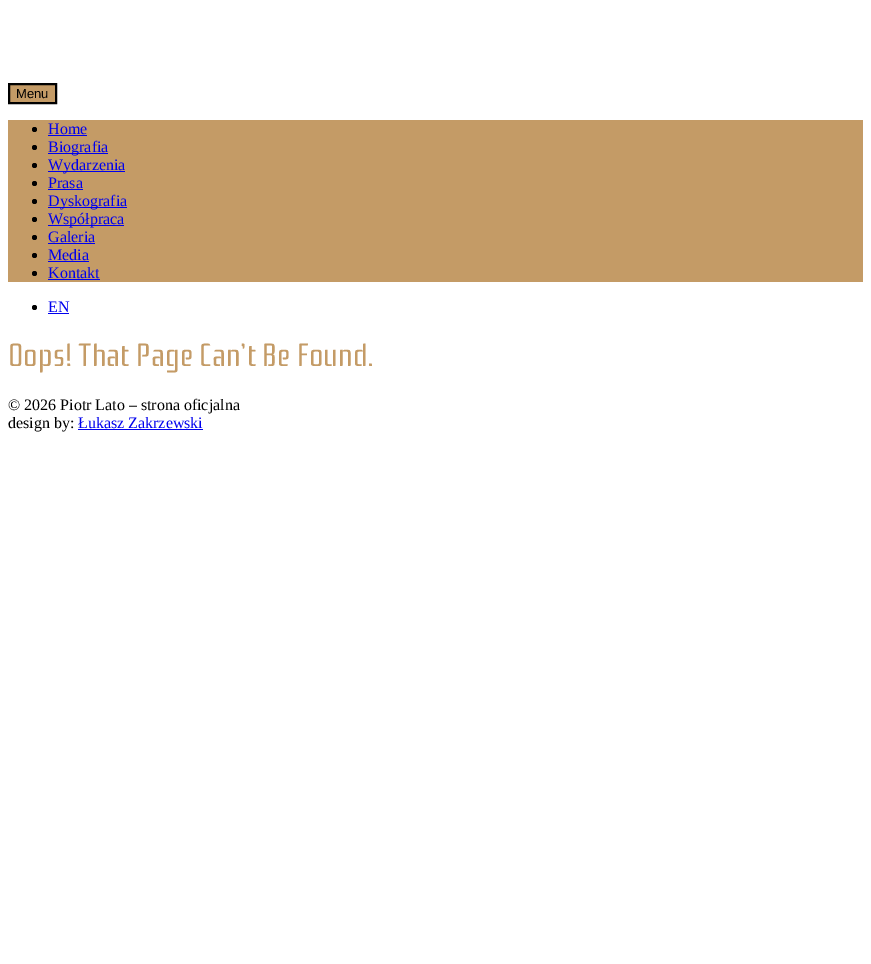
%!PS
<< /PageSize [871 964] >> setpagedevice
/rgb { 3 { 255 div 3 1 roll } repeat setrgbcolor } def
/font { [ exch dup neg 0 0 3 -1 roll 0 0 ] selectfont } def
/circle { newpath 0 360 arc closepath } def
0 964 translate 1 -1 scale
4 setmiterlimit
255 255 255 rgb
0 0 871 964 rectfill
196 155 102 rgb
9 84 moveto 56 84 lineto 56 103 lineto 9 103 lineto closepath gsave fill grestore
0 0 0 rgb
2 setlinewidth
stroke
196 155 102 rgb
8 120 855 162 rectfill
0 0 0 rgb
34.5 129.5 2.5 circle fill
0 0 238 rgb
48 135 39 1 rectfill
0 0 0 rgb
34.5 147.5 2.5 circle fill
0 0 238 rgb
48 153 60 1 rectfill
0 0 0 rgb
34.5 165.5 2.5 circle fill
0 0 238 rgb
48 171 77 1 rectfill
0 0 0 rgb
34.5 183.5 2.5 circle fill
0 0 238 rgb
48 189 35 1 rectfill
0 0 0 rgb
34.5 201.5 2.5 circle fill
0 0 238 rgb
48 207 79 1 rectfill
0 0 0 rgb
34.5 219.5 2.5 circle fill
0 0 238 rgb
48 225 76 1 rectfill
0 0 0 rgb
34.5 237.5 2.5 circle fill
0 0 238 rgb
48 243 47 1 rectfill
0 0 0 rgb
34.5 255.5 2.5 circle fill
0 0 238 rgb
48 261 41 1 rectfill
0 0 0 rgb
34.5 273.5 2.5 circle fill
0 0 238 rgb
48 279 52 1 rectfill
0 0 0 rgb
34.5 307.5 2.5 circle fill
0 0 238 rgb
48 313 21 1 rectfill
78 429 125 1 rectfill
/LiberationSans-Regular 13 font
0 0 0 rgb
16 98 moveto (Menu) show
/LiberationSerif-Regular 16 font
0 0 238 rgb
[
  [(Home) 48 134]
  [(Biografia) 48 152]
  [(Wydarzenia) 48 170]
  [(Prasa) 48 188]
  [(Dyskografia) 48 206]
  [(Współpraca) 48 224]
  [(Galeria) 48 242]
  [(Media) 48 260]
  [(Kontakt) 48 278]
  [(EN) 48 312]
] { aload pop moveto show } forall
/Rationale-Regular 32 font
196 155 102 rgb
8 366 moveto (Oops! That Page Can’t Be Found.) show
/LiberationSerif-Regular 16 font
0 0 0 rgb
8 410 moveto (© 2026 Piotr Lato – strona oficjalna) show
8 428 moveto (design by:) show
0 0 238 rgb
78 428 moveto (Łukasz Zakrzewski) show
showpage
